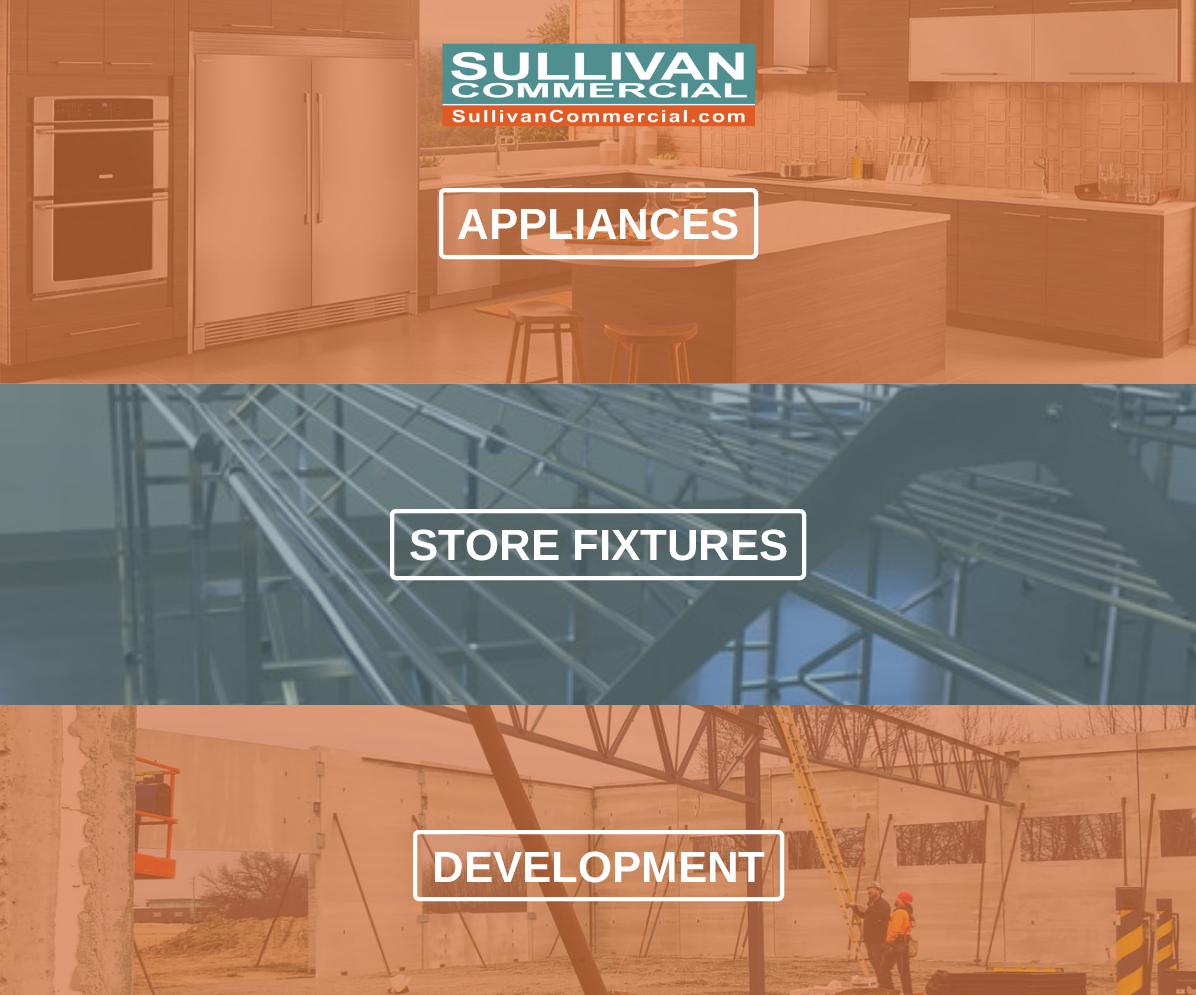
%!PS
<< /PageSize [1196 995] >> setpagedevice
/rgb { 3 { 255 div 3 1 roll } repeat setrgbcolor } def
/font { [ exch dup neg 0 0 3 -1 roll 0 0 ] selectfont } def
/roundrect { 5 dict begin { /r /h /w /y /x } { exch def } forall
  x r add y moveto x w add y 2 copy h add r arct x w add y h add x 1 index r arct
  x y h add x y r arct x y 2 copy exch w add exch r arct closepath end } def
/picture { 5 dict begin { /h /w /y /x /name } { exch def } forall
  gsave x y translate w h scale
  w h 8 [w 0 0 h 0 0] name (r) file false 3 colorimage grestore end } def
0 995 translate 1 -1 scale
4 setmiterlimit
231 159 120 rgb
0 0 1196 995 rectfill
(img/2.rgb) 0 0 1196 384 picture
(img/1.rgb) 442 43 313 84 picture
255 255 255 rgb
4 setlinewidth
441 190 315 67 4 roundrect stroke
(img/3.rgb) 0 383 1196 322 picture
392 511 412 67 4 roundrect stroke
(img/4.rgb) 0 705 1196 290 picture
415 832 367 67 4 roundrect stroke
/LiberationSans-Bold 43.75 font
[
  [(APPLIANCES) 457 239]
  [(STORE FIXTURES) 409 560]
  [(DEVELOPMENT) 432 882]
] { aload pop moveto show } forall
showpage
